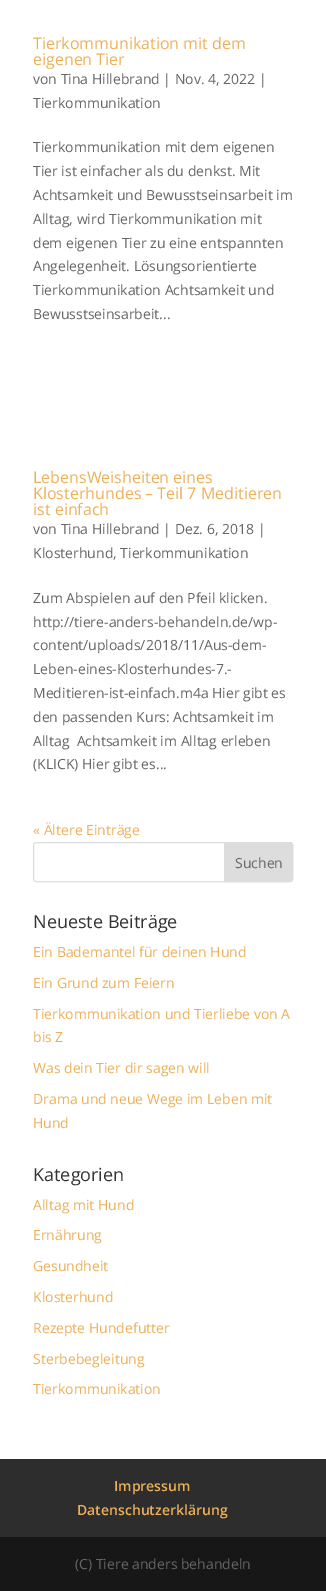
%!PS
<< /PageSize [326 1591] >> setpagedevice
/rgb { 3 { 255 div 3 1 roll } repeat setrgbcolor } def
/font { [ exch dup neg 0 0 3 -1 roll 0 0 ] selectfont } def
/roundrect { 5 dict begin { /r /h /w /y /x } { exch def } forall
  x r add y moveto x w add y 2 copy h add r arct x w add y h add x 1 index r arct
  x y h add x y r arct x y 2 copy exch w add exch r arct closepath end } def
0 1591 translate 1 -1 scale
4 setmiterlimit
255 255 255 rgb
0 0 326 1591 rectfill
221 221 221 rgb
33.5 842.5 259 39 2.5 roundrect stroke
224.5 842.5 moveto 290 842.5 lineto 291.5 842.5 292.5 843.5 292.5 845 curveto 292.5 879 lineto 292.5 880.5 291.5 881.5 290 881.5 curveto 224.5 881.5 lineto closepath gsave fill grestore
stroke
45 45 45 rgb
0 1459 326 78 rectfill
23 23 23 rgb
0 1537 326 54 rectfill
/OpenSans-Regular 16 font
237 176 89 rgb
33 49 moveto (Tierkommunikation mit dem) show
33 65 moveto (eigenen Tier) show
/OpenSans-Regular 14 font
102 102 102 rgb
[
  [(von Tina Hillebrand | Nov. 4, 2022 |) 33 84]
  [(Tierkommunikation) 33 108]
  [(Tierkommunikation mit dem eigenen) 33 152]
  [(Tier ist einfacher als du denkst. Mit) 33 176]
  [(Achtsamkeit und Bewusstseinsarbeit im) 33 200]
  [(Alltag, wird Tierkommunikation mit) 33 224]
  [(dem eigenen Tier zu eine entspannten) 33 248]
  [(Angelegenheit. Lösungsorientierte) 33 271]
  [(Tierkommunikation Achtsamkeit und) 33 295]
  [(Bewusstseinsarbeit...) 33 319]
] { aload pop moveto show } forall
/OpenSans-Regular 16 font
237 176 89 rgb
[
  [(LebensWeisheiten eines) 33 483]
  [(Klosterhundes – Teil 7 Meditieren) 33 499]
  [(ist einfach) 33 515]
] { aload pop moveto show } forall
/OpenSans-Regular 14 font
102 102 102 rgb
[
  [(von Tina Hillebrand | Dez. 6, 2018 |) 33 534]
  [(Klosterhund, Tierkommunikation) 33 558]
  [(Zum Abspielen auf den Pfeil klicken.) 33 603]
  [(http://tiere-anders-behandeln.de/wp-) 33 627]
  [(content/uploads/2018/11/Aus-dem-) 33 650]
  [(Leben-eines-Klosterhundes-7.-) 33 674]
  [(Meditieren-ist-einfach.m4a Hier gibt es) 33 698]
  [(den passenden Kurs: Achtsamkeit im) 33 722]
  [(Alltag  Achtsamkeit im Alltag erleben) 33 746]
  [(\(KLICK\) Hier gibt es...) 33 769]
] { aload pop moveto show } forall
237 176 89 rgb
33 835 moveto (« Ältere Einträge) show
102 102 102 rgb
235 868 moveto (Suchen) show
/OpenSans-Regular 18 font
51 51 51 rgb
33 928 moveto (Neueste Beiträge) show
/OpenSans-Regular 14 font
237 176 89 rgb
[
  [(Ein Bademantel für deinen Hund) 33 957]
  [(Ein Grund zum Feiern) 33 988]
  [(Tierkommunikation und Tierliebe von A) 33 1019]
  [(bis Z) 33 1042]
  [(Was dein Tier dir sagen will) 33 1073]
  [(Drama und neue Wege im Leben mit) 33 1104]
  [(Hund) 33 1128]
] { aload pop moveto show } forall
/OpenSans-Regular 18 font
51 51 51 rgb
33 1181 moveto (Kategorien) show
/OpenSans-Regular 14 font
237 176 89 rgb
[
  [(Alltag mit Hund) 33 1210]
  [(Ernährung) 33 1240]
  [(Gesundheit) 33 1271]
  [(Klosterhund) 33 1302]
  [(Rezepte Hundefutter) 33 1333]
  [(Sterbebegleitung) 33 1364]
  [(Tierkommunikation) 33 1394]
] { aload pop moveto show } forall
/OpenSans-SemiBold 14 font
114 1491 moveto (Impressum) show
77 1515 moveto (Datenschutzerklärung) show
/OpenSans-Regular 14 font
102 102 102 rgb
75 1569 moveto (\(C\) Tiere anders behandeln) show
showpage
